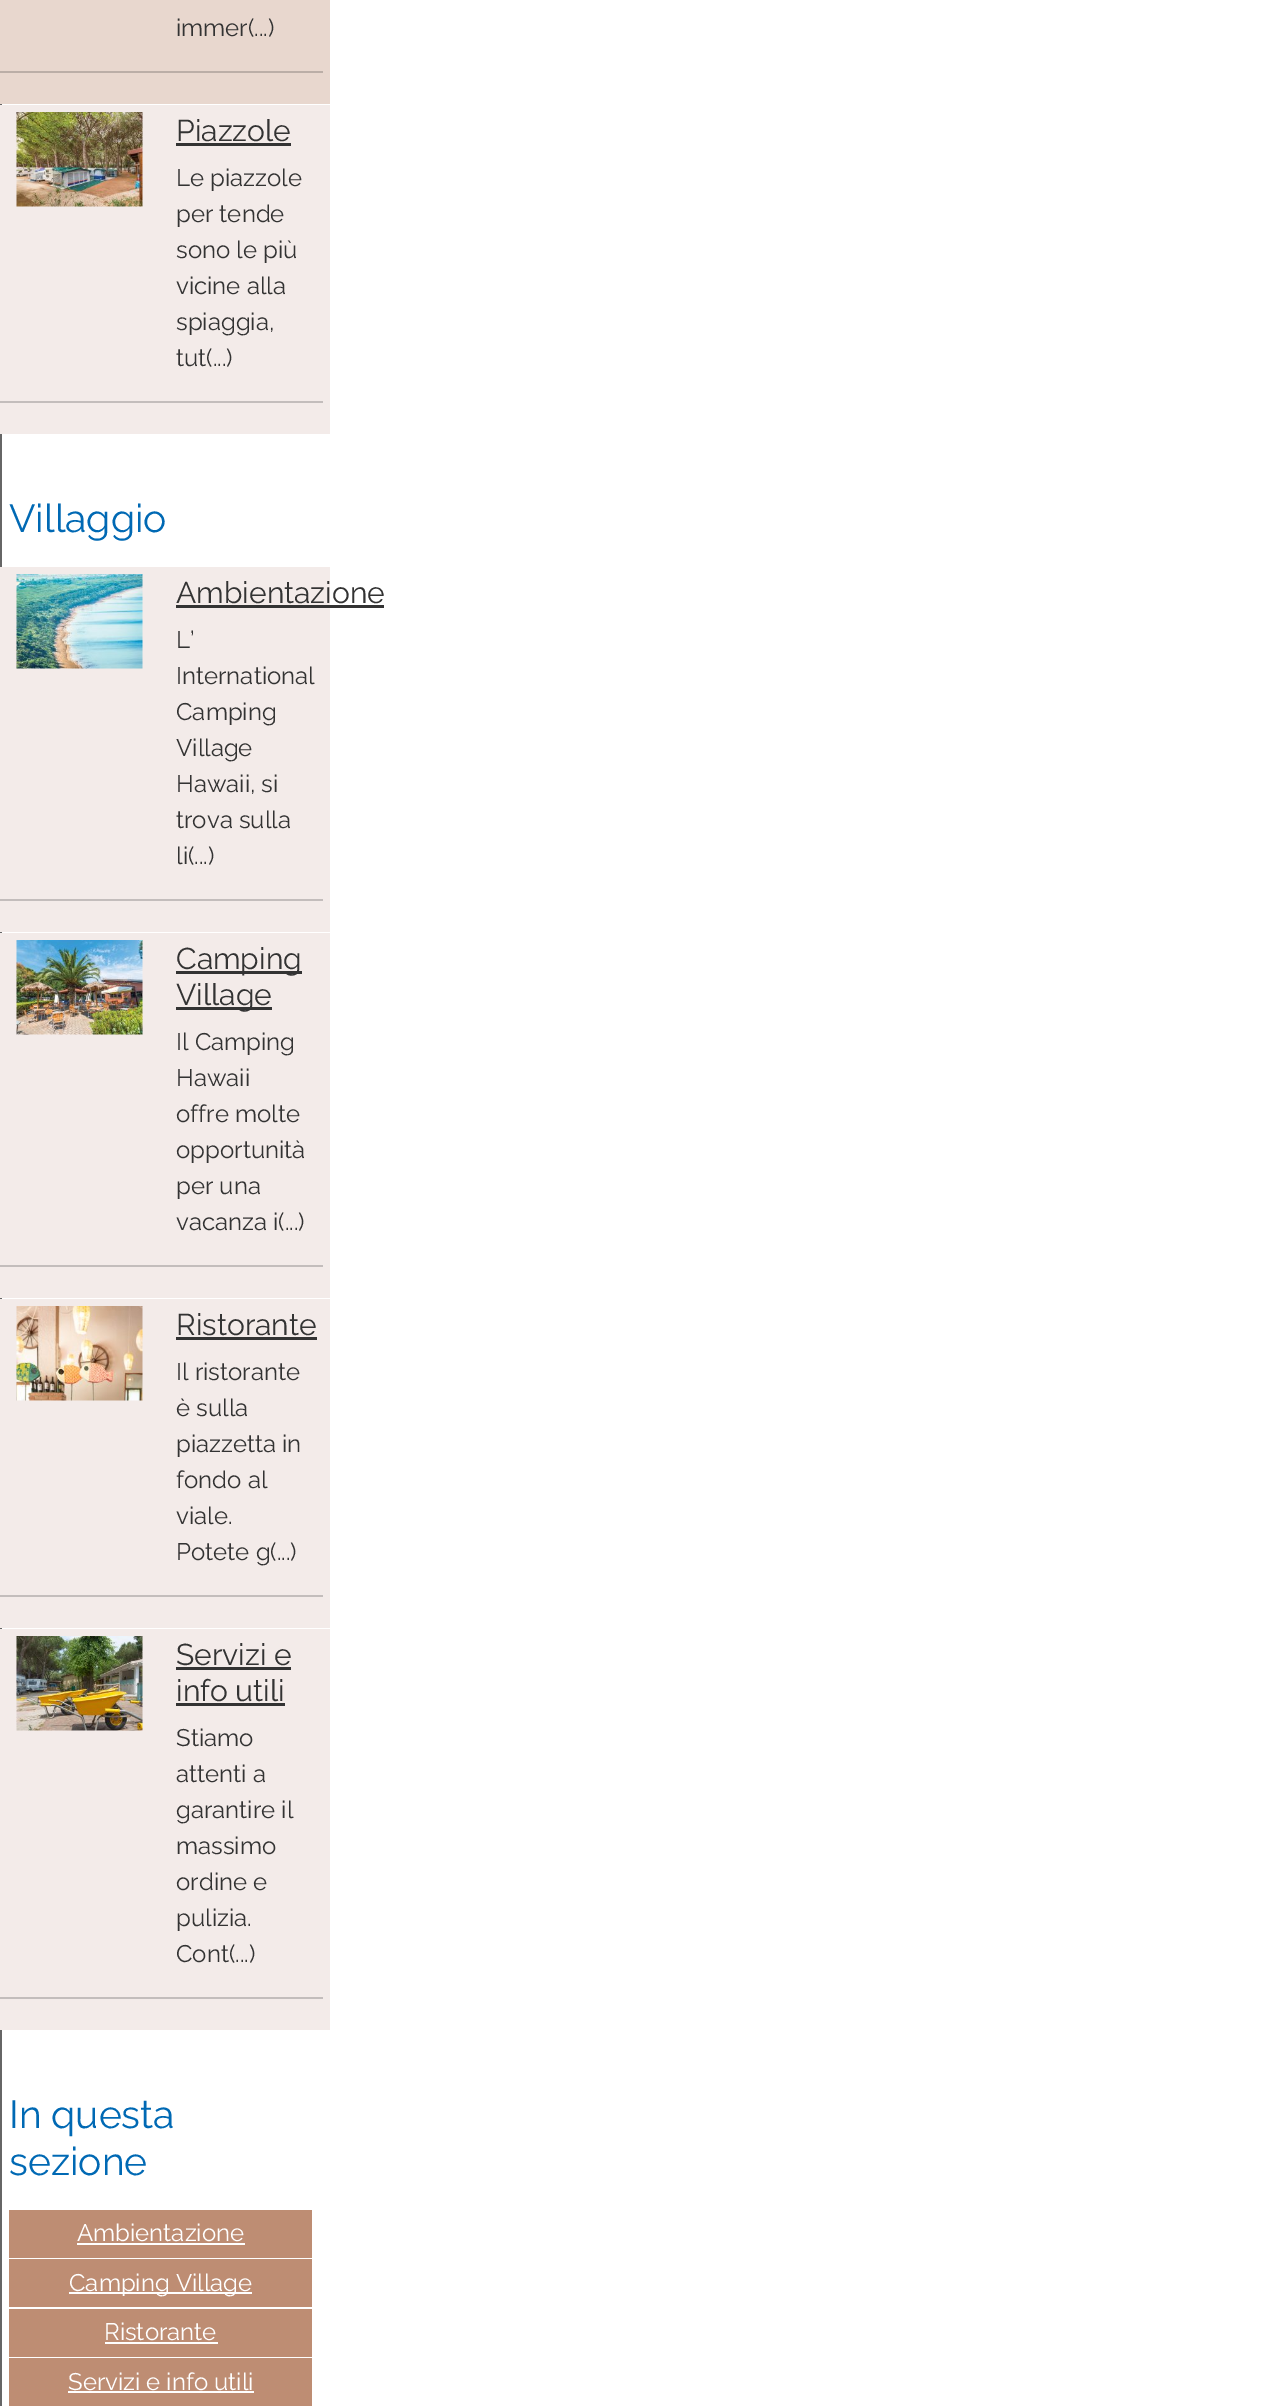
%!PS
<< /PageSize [1279 2406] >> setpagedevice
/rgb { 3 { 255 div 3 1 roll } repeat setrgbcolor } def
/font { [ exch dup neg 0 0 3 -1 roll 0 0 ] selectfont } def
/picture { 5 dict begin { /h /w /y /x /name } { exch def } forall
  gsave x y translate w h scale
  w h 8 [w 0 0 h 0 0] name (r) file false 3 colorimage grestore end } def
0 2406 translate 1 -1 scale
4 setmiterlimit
255 255 255 rgb
0 0 1279 2406 rectfill
[
  [0 104 2 2302 102 102 102]
  [0 0 330 104 232 215 206]
  [0 71 323 2 187 174 167]
  [0 105 330 329 243 235 233]
] { aload pop rgb rectfill } forall
(img/1.rgb) 16 112 127 95 picture
[
  [176 143 115 3 51 51 51]
  [0 401 323 2 195 189 188]
  [0 567 330 365 243 235 233]
] { aload pop rgb rectfill } forall
(img/2.rgb) 16 574 127 95 picture
[
  [176 605 208 3 51 51 51]
  [0 899 323 2 195 189 188]
  [0 933 330 365 243 235 233]
] { aload pop rgb rectfill } forall
(img/3.rgb) 16 940 127 95 picture
[
  [176 971 126 3 51 51 51]
  [176 1007 96 3 51 51 51]
  [0 1265 323 2 195 189 188]
  [0 1299 330 329 243 235 233]
] { aload pop rgb rectfill } forall
(img/4.rgb) 16 1306 127 95 picture
[
  [176 1337 141 3 51 51 51]
  [0 1595 323 2 195 189 188]
  [0 1629 330 401 243 235 233]
] { aload pop rgb rectfill } forall
(img/5.rgb) 16 1636 127 95 picture
[
  [176 1667 115 3 51 51 51]
  [176 1703 109 3 51 51 51]
  [0 1997 323 2 195 189 188]
  [9 2210 303 48 190 141 115]
  [77 2243 168 2 255 255 255]
  [9 2259 303 48 190 141 115]
  [69 2292 183 2 255 255 255]
  [9 2309 303 48 190 141 115]
  [105 2342 113 2 255 255 255]
  [9 2358 303 48 190 141 115]
  [68 2391 186 2 255 255 255]
] { aload pop rgb rectfill } forall
/Raleway-Regular 24 font
51 51 51 rgb
176 36 moveto (immer\(...\)) show
/Raleway-Regular 30 font
176 141 moveto (Piazzole) show
/Raleway-Regular 24 font
[
  [(Le piazzole) 176 186]
  [(per tende) 176 222]
  [(sono le più) 176 258]
  [(vicine alla) 176 294]
  [(spiaggia,) 176 330]
  [(tut\(...\)) 176 366]
] { aload pop moveto show } forall
/Raleway-Regular 39 font
0 105 180 rgb
9 532 moveto (Villaggio) show
/Raleway-Regular 30 font
51 51 51 rgb
176 603 moveto (Ambientazione) show
/Raleway-Regular 24 font
[
  [(L’) 176 648]
  [(International) 176 684]
  [(Camping) 176 720]
  [(Village) 176 756]
  [(Hawaii, si) 176 792]
  [(trova sulla) 176 828]
  [(li\(...\)) 176 864]
] { aload pop moveto show } forall
/Raleway-Regular 30 font
176 969 moveto (Camping) show
176 1005 moveto (Village) show
/Raleway-Regular 24 font
[
  [(Il Camping) 176 1050]
  [(Hawaii) 176 1086]
  [(offre molte) 176 1122]
  [(opportunità) 176 1158]
  [(per una) 176 1194]
  [(vacanza i\(...\)) 176 1230]
] { aload pop moveto show } forall
/Raleway-Regular 30 font
176 1335 moveto (Ristorante) show
/Raleway-Regular 24 font
[
  [(Il ristorante) 176 1380]
  [(è sulla) 176 1416]
  [(piazzetta in) 176 1452]
  [(fondo al) 176 1488]
  [(viale.) 176 1524]
  [(Potete g\(...\)) 176 1560]
] { aload pop moveto show } forall
/Raleway-Regular 30 font
176 1665 moveto (Servizi e) show
176 1701 moveto (info utili) show
/Raleway-Regular 24 font
[
  [(Stiamo) 176 1746]
  [(attenti a) 176 1782]
  [(garantire il) 176 1818]
  [(massimo) 176 1854]
  [(ordine e) 176 1890]
  [(pulizia.) 176 1926]
  [(Cont\(...\)) 176 1962]
] { aload pop moveto show } forall
/Raleway-Regular 39 font
0 105 180 rgb
9 2128 moveto (In questa) show
9 2175 moveto (sezione) show
/Raleway-Regular 24 font
255 255 255 rgb
[
  [(Ambientazione) 77 2241]
  [(Camping Village) 69 2291]
  [(Ristorante) 104 2340]
  [(Servizi e info utili) 68 2390]
] { aload pop moveto show } forall
showpage
